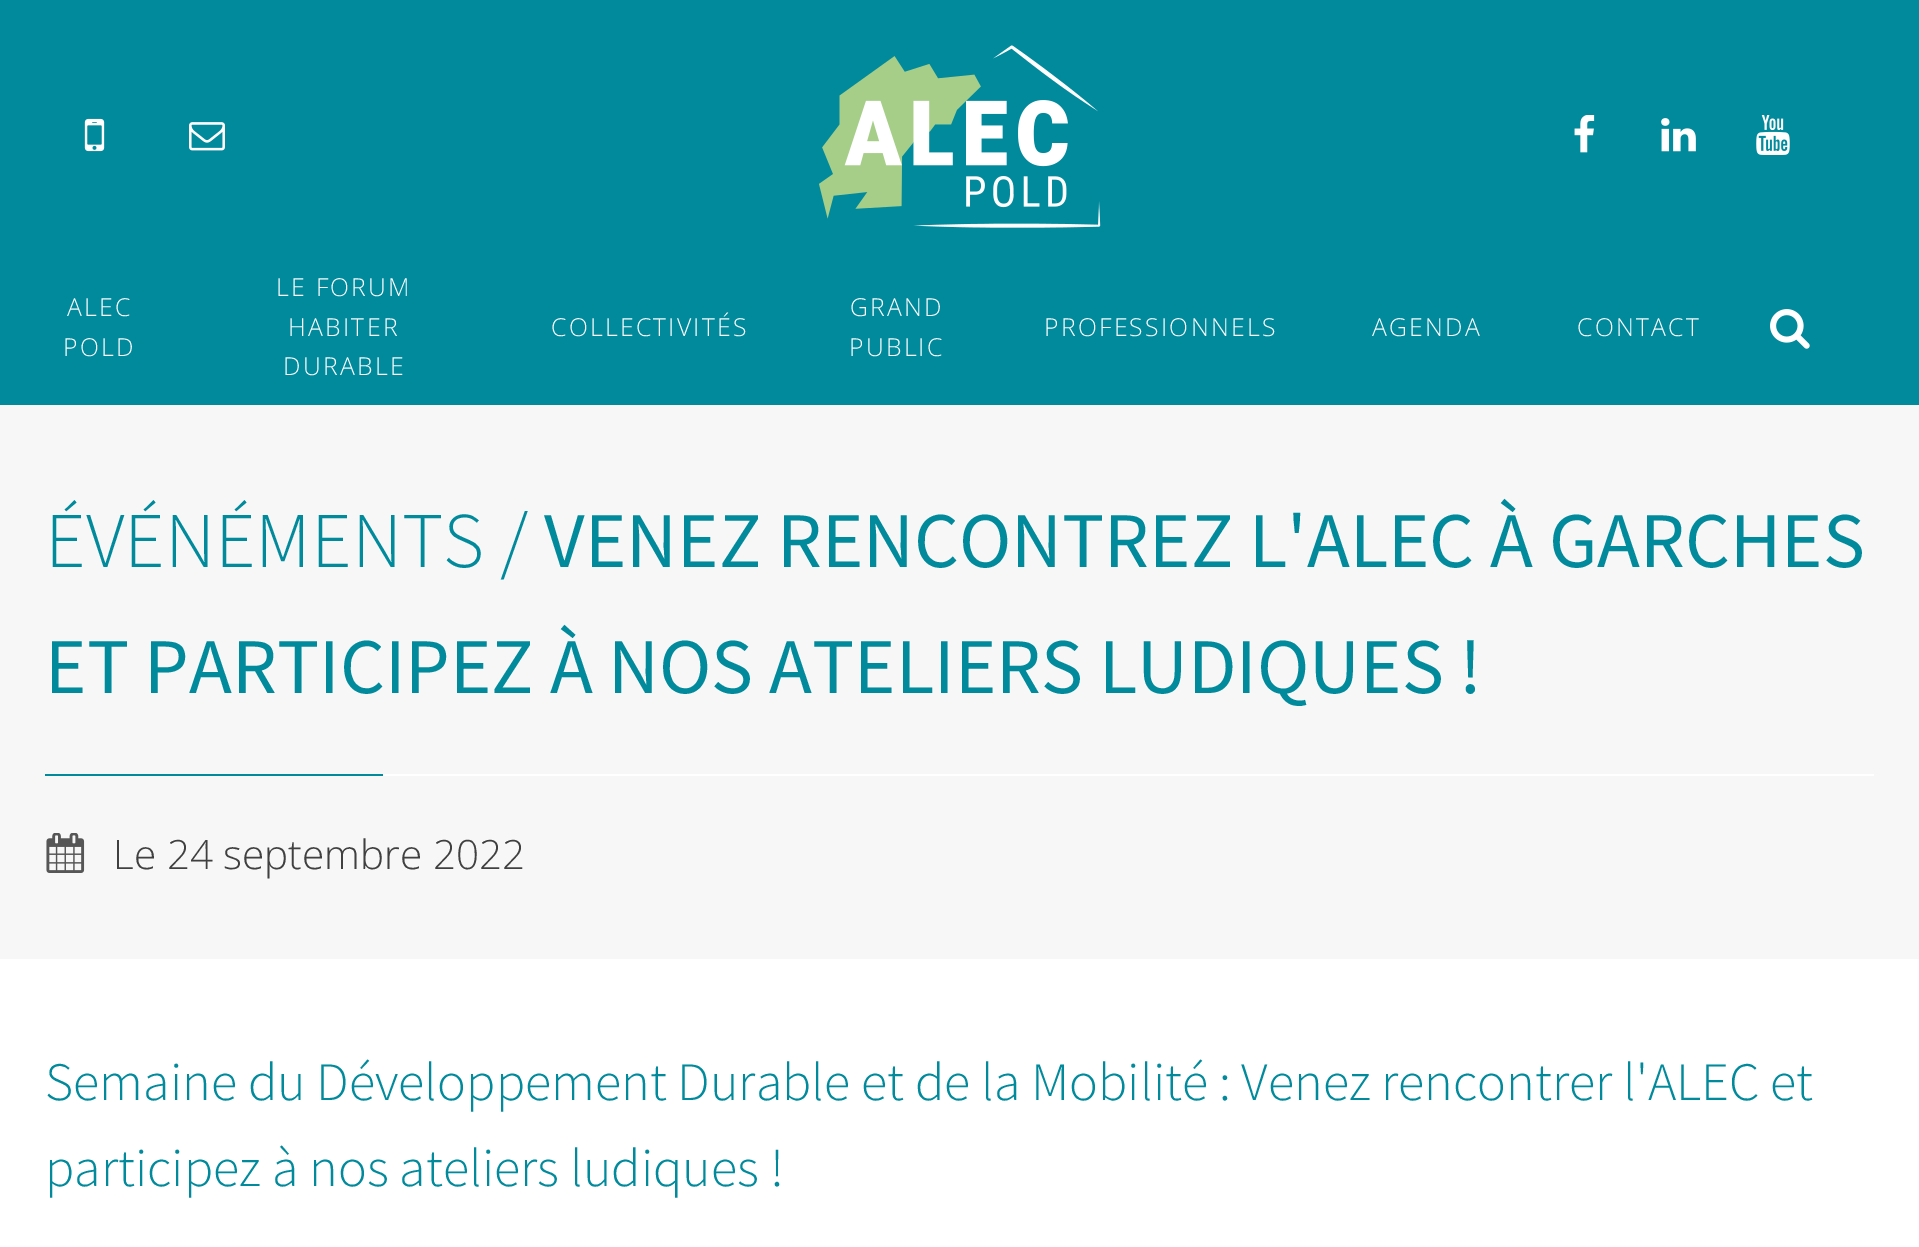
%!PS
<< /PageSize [1919 1247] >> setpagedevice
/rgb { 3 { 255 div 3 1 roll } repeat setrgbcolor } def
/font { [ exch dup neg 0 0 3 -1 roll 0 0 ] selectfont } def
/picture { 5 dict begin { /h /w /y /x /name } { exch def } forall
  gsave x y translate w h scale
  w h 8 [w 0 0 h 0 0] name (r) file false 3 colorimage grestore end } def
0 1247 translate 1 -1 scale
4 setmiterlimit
255 255 255 rgb
0 0 1919 1247 rectfill
0 138 156 rgb
0 0 1919 405 rectfill
(img/1.rgb) 84 118 21 34 picture
(img/2.rgb) 189 122 36 29 picture
(img/3.rgb) 819 45 282 183 picture
(img/4.rgb) 1574 115 21 38 picture
(img/5.rgb) 1661 118 35 34 picture
(img/6.rgb) 1756 115 34 40 picture
(img/7.rgb) 1770 309 40 40 picture
[
  [0 405 1919 554 247 247 247]
  [383 774 1491 2 255 255 255]
  [45 774 338 2 0 138 156]
] { aload pop rgb rectfill } forall
(img/8.rgb) 46 833 39 40 picture
/OpenSans-Light 24.75 font
255 255 255 rgb
67 316 moveto 2.25 0 (ALEC) ashow
63 356 moveto 2.25 0 (POLD) ashow
276 296 moveto 2.25 0 (LE FORUM) ashow
288 336 moveto 2.25 0 (HABITER) ashow
283 375 moveto 2.25 0 (DURABLE) ashow
551 336 moveto 2.25 0 (COLLECTIVITÉS) ashow
850 316 moveto 2.25 0 (GRAND) ashow
849 356 moveto 2.25 0 (PUBLIC) ashow
1044 336 moveto 2.25 0 (PROFESSIONNELS) ashow
1372 336 moveto 2.25 0 (AGENDA) ashow
1577 336 moveto 2.25 0 (CONTACT) ashow
/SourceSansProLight-Light 78.75 font
0 138 156 rgb
45 567 moveto (ÉVÉNÉMENTS /) show
/SourceSansPro-Regular 78.75 font
544 567 moveto (VENEZ RENCONTREZ L'ALEC À GARCHES) show
45 693 moveto (ET PARTICIPEZ À NOS ATELIERS LUDIQUES !) show
/OpenSans-Light 40.5 font
64 64 64 rgb
113 869 moveto (Le 24 septembre 2022) show
/SourceSansProLight-Light 54 font
0 138 156 rgb
45 1100 moveto (Semaine du Développement Durable et de la Mobilité : Venez rencontrer l'ALEC et) show
45 1186 moveto (participez à nos ateliers ludiques !) show
showpage
